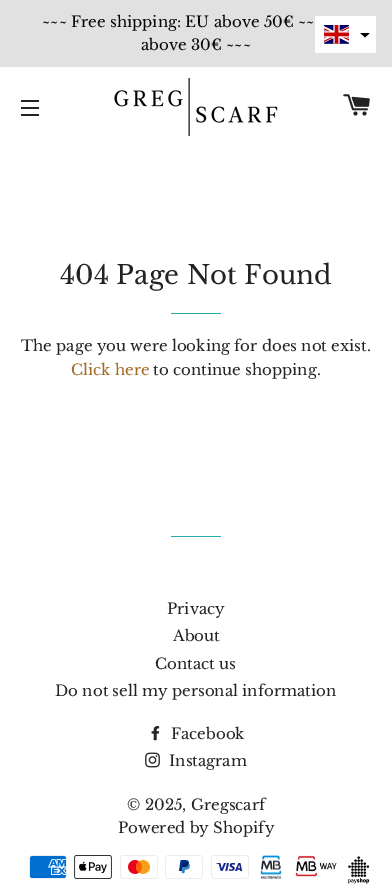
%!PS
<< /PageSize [392 888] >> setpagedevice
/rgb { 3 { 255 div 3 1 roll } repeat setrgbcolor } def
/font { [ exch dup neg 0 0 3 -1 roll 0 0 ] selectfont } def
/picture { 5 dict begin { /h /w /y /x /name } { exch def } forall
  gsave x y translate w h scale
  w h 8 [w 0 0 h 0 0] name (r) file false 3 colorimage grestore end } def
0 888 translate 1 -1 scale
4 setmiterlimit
255 255 255 rgb
0 0 392 888 rectfill
[
  [0 0 392 67 225 225 225]
  [21 100 18 2 34 35 35]
  [21 107 18 2 34 35 35]
  [21 114 18 2 34 35 35]
] { aload pop rgb rectfill } forall
(img/1.rgb) 114 78 164 58 picture
(img/2.rgb) 343 94 27 22 picture
255 255 255 rgb
315 16 61 37 rectfill
(img/3.rgb) 324 25 25 19 picture
gsave
360 33 10 5 rectclip
0 0 0 rgb
370 32.5 moveto 365 37.5 lineto 360 32.5 lineto closepath eofill
grestore
36 171 171 rgb
171 313 50 1 rectfill
171 536 50 1 rectfill
(img/4.rgb) 151 726 9 15 picture
(img/5.rgb) 145 752 15 16 picture
(img/6.rgb) 29 855 38 24 picture
(img/7.rgb) 74 855 38 24 picture
(img/8.rgb) 120 855 38 24 picture
(img/9.rgb) 165 855 38 24 picture
(img/10.rgb) 211 855 38 24 picture
(img/11.rgb) 260 855 22 25 picture
(img/12.rgb) 295 855 42 23 picture
(img/13.rgb) 347 855 23 30 picture
/LibreBaskerville-Regular 15 font
7 6 6 rgb
42 27 moveto (~~~ Free shipping: EU above 50€ ~~) show
141 50 moveto (above 30€ ~~~) show
/LibreBaskerville-Regular 26 font
34 35 35 rgb
60 284 moveto (404 Page Not Found) show
/LibreBaskerville-Regular 15 font
21 351 moveto (The page you were looking for does not exist.) show
162 107 37 rgb
71 375 moveto (Click here) show
34 35 35 rgb
[
  [(to continue shopping.) 153 375]
  [(Privacy) 167 614]
  [(About) 173 641]
  [(Contact us) 155 669]
  [(Do not sell my personal information) 55 696]
  [(Facebook) 171 739]
  [(Instagram) 169 766]
  [(© 2025, Gregscarf) 127 810]
  [(Powered by Shopify) 118 833]
] { aload pop moveto show } forall
showpage
